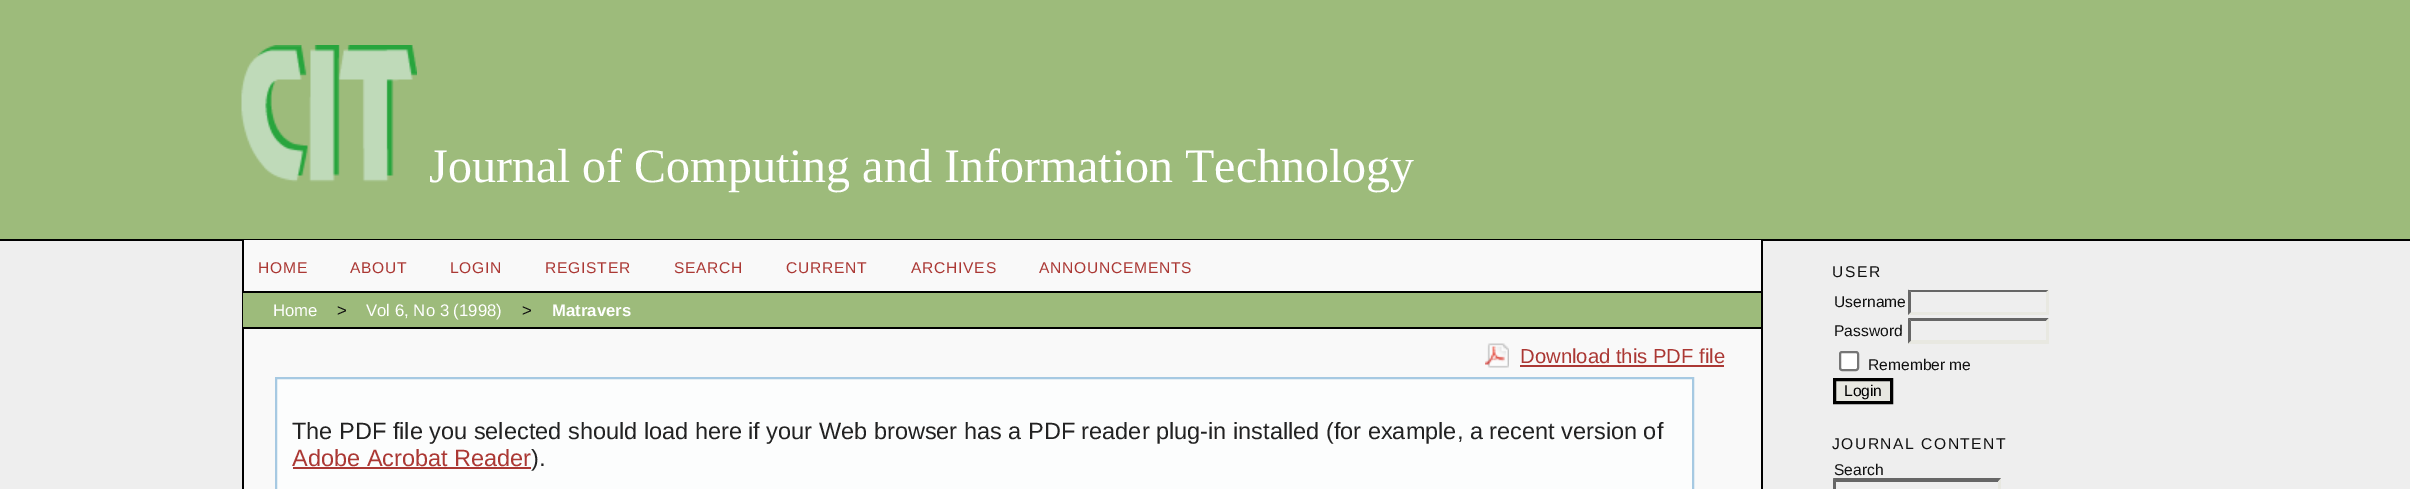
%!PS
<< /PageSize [2410 489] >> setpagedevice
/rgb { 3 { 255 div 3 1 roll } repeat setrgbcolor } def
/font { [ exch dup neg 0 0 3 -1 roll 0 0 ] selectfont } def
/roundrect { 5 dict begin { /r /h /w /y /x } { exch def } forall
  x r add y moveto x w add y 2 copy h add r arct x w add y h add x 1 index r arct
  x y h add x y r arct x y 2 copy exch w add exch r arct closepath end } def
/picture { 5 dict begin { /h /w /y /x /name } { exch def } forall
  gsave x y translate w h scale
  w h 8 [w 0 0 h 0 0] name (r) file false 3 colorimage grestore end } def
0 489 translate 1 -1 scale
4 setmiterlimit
238 238 238 rgb
0 0 2410 489 rectfill
0 0 0 rgb
0 239 2410 2 rectfill
157 187 123 rgb
0 0 2410 239 rectfill
(img/1.rgb) 241 45 176 137 picture
[
  [244 240 1517 249 249 249 249]
  [1761 240 2 249 0 0 0]
  [242 240 2 249 0 0 0]
  [243 291 1518 2 0 0 0]
  [243 293 1518 34 157 187 123]
  [243 327 1518 2 0 0 0]
] { aload pop rgb rectfill } forall
(img/2.rgb) 1485 343 24 25 picture
171 56 52 rgb
1520 365 204 2 rectfill
252 253 253 rgb
276 378 moveto 1693 378 lineto 1693 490 lineto 276 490 lineto closepath gsave fill grestore
166 201 226 rgb
2 setlinewidth
stroke
171 56 52 rgb
293 467 238 2 rectfill
102 102 102 rgb
1908 290 moveto 2049 290 lineto 2046 292 lineto 1911 292 lineto closepath fill
232 232 225 rgb
2049 289.5 moveto 2049 315 lineto 2046 312 lineto 2046 292.5 lineto closepath fill
2049 315 moveto 1908 315 lineto 1911 312 lineto 2046 312 lineto closepath fill
102 102 102 rgb
1908 315 moveto 1908 289.5 lineto 1911 292.5 lineto 1911 312 lineto closepath fill
1908 318 moveto 2049 318 lineto 2046 321 lineto 1911 321 lineto closepath fill
232 232 225 rgb
2049 318 moveto 2049 343.5 lineto 2046 340.5 lineto 2046 321 lineto closepath fill
2049 344 moveto 1908 344 lineto 1911 340 lineto 2046 340 lineto closepath fill
102 102 102 rgb
1908 343.5 moveto 1908 318 lineto 1911 321 lineto 1911 340.5 lineto closepath fill
255 255 255 rgb
1840 352 18 18 2 roundrect gsave fill grestore
118 118 118 rgb
stroke
232 232 225 rgb
1834.5 379.5 moveto 1891.5 379.5 lineto 1891.5 402.5 lineto 1834.5 402.5 lineto closepath gsave fill grestore
0 0 0 rgb
3 setlinewidth
stroke
102 102 102 rgb
1833 478 moveto 2001 478 lineto 1998 482 lineto 1836 482 lineto closepath fill
232 232 225 rgb
2001 478.5 moveto 2001 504 lineto 1998 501 lineto 1998 481.5 lineto closepath fill
102 102 102 rgb
1833 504 moveto 1833 478.5 lineto 1836 481.5 lineto 1836 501 lineto closepath fill
/LiberationSerif-Regular 48 font
255 255 255 rgb
429 182 moveto (Journal of Computing and Information Technology) show
/LiberationSans-Regular 15.6 font
171 56 52 rgb
258 273 moveto 0.75 0 (HOME) ashow
350 273 moveto 0.75 0 (ABOUT) ashow
450 273 moveto 0.75 0 (LOGIN) ashow
545 273 moveto 0.75 0 (REGISTER) ashow
674 273 moveto 0.75 0 (SEARCH) ashow
786 273 moveto 0.75 0 (CURRENT) ashow
911 273 moveto 0.75 0 (ARCHIVES) ashow
1039 273 moveto 0.75 0 (ANNOUNCEMENTS) ashow
/LiberationSans-Regular 16.75 font
255 255 255 rgb
273 316 moveto (Home) show
17 17 17 rgb
337 316 moveto (>) show
255 255 255 rgb
366 316 moveto (Vol 6, No 3 \(1998\)) show
17 17 17 rgb
522 316 moveto (>) show
/LiberationSans-Bold 16.75 font
255 255 255 rgb
552 316 moveto (Matravers) show
/LiberationSans-Regular 20.25 font
171 56 52 rgb
1520 363 moveto (Download this PDF file) show
/LiberationSans-Regular 23.52 font
34 34 34 rgb
292 439 moveto (The PDF file you selected should load here if your Web browser has a PDF reader plug-in installed \(for example, a recent version of) show
171 56 52 rgb
292 466 moveto (Adobe Acrobat Reader) show
34 34 34 rgb
531 466 moveto (\).) show
/LiberationSans-Regular 15.6 font
17 17 17 rgb
1832 277 moveto 1.5 0 (USER) ashow
[
  [(Username) 1834 307]
  [(Password) 1834 336]
  [(Remember me) 1868 370]
] { aload pop moveto show } forall
0 0 0 rgb
1844 396 moveto (Login) show
17 17 17 rgb
1832 449 moveto 1.5 0 (JOURNAL CONTENT) ashow
1834 475 moveto (Search) show
showpage
